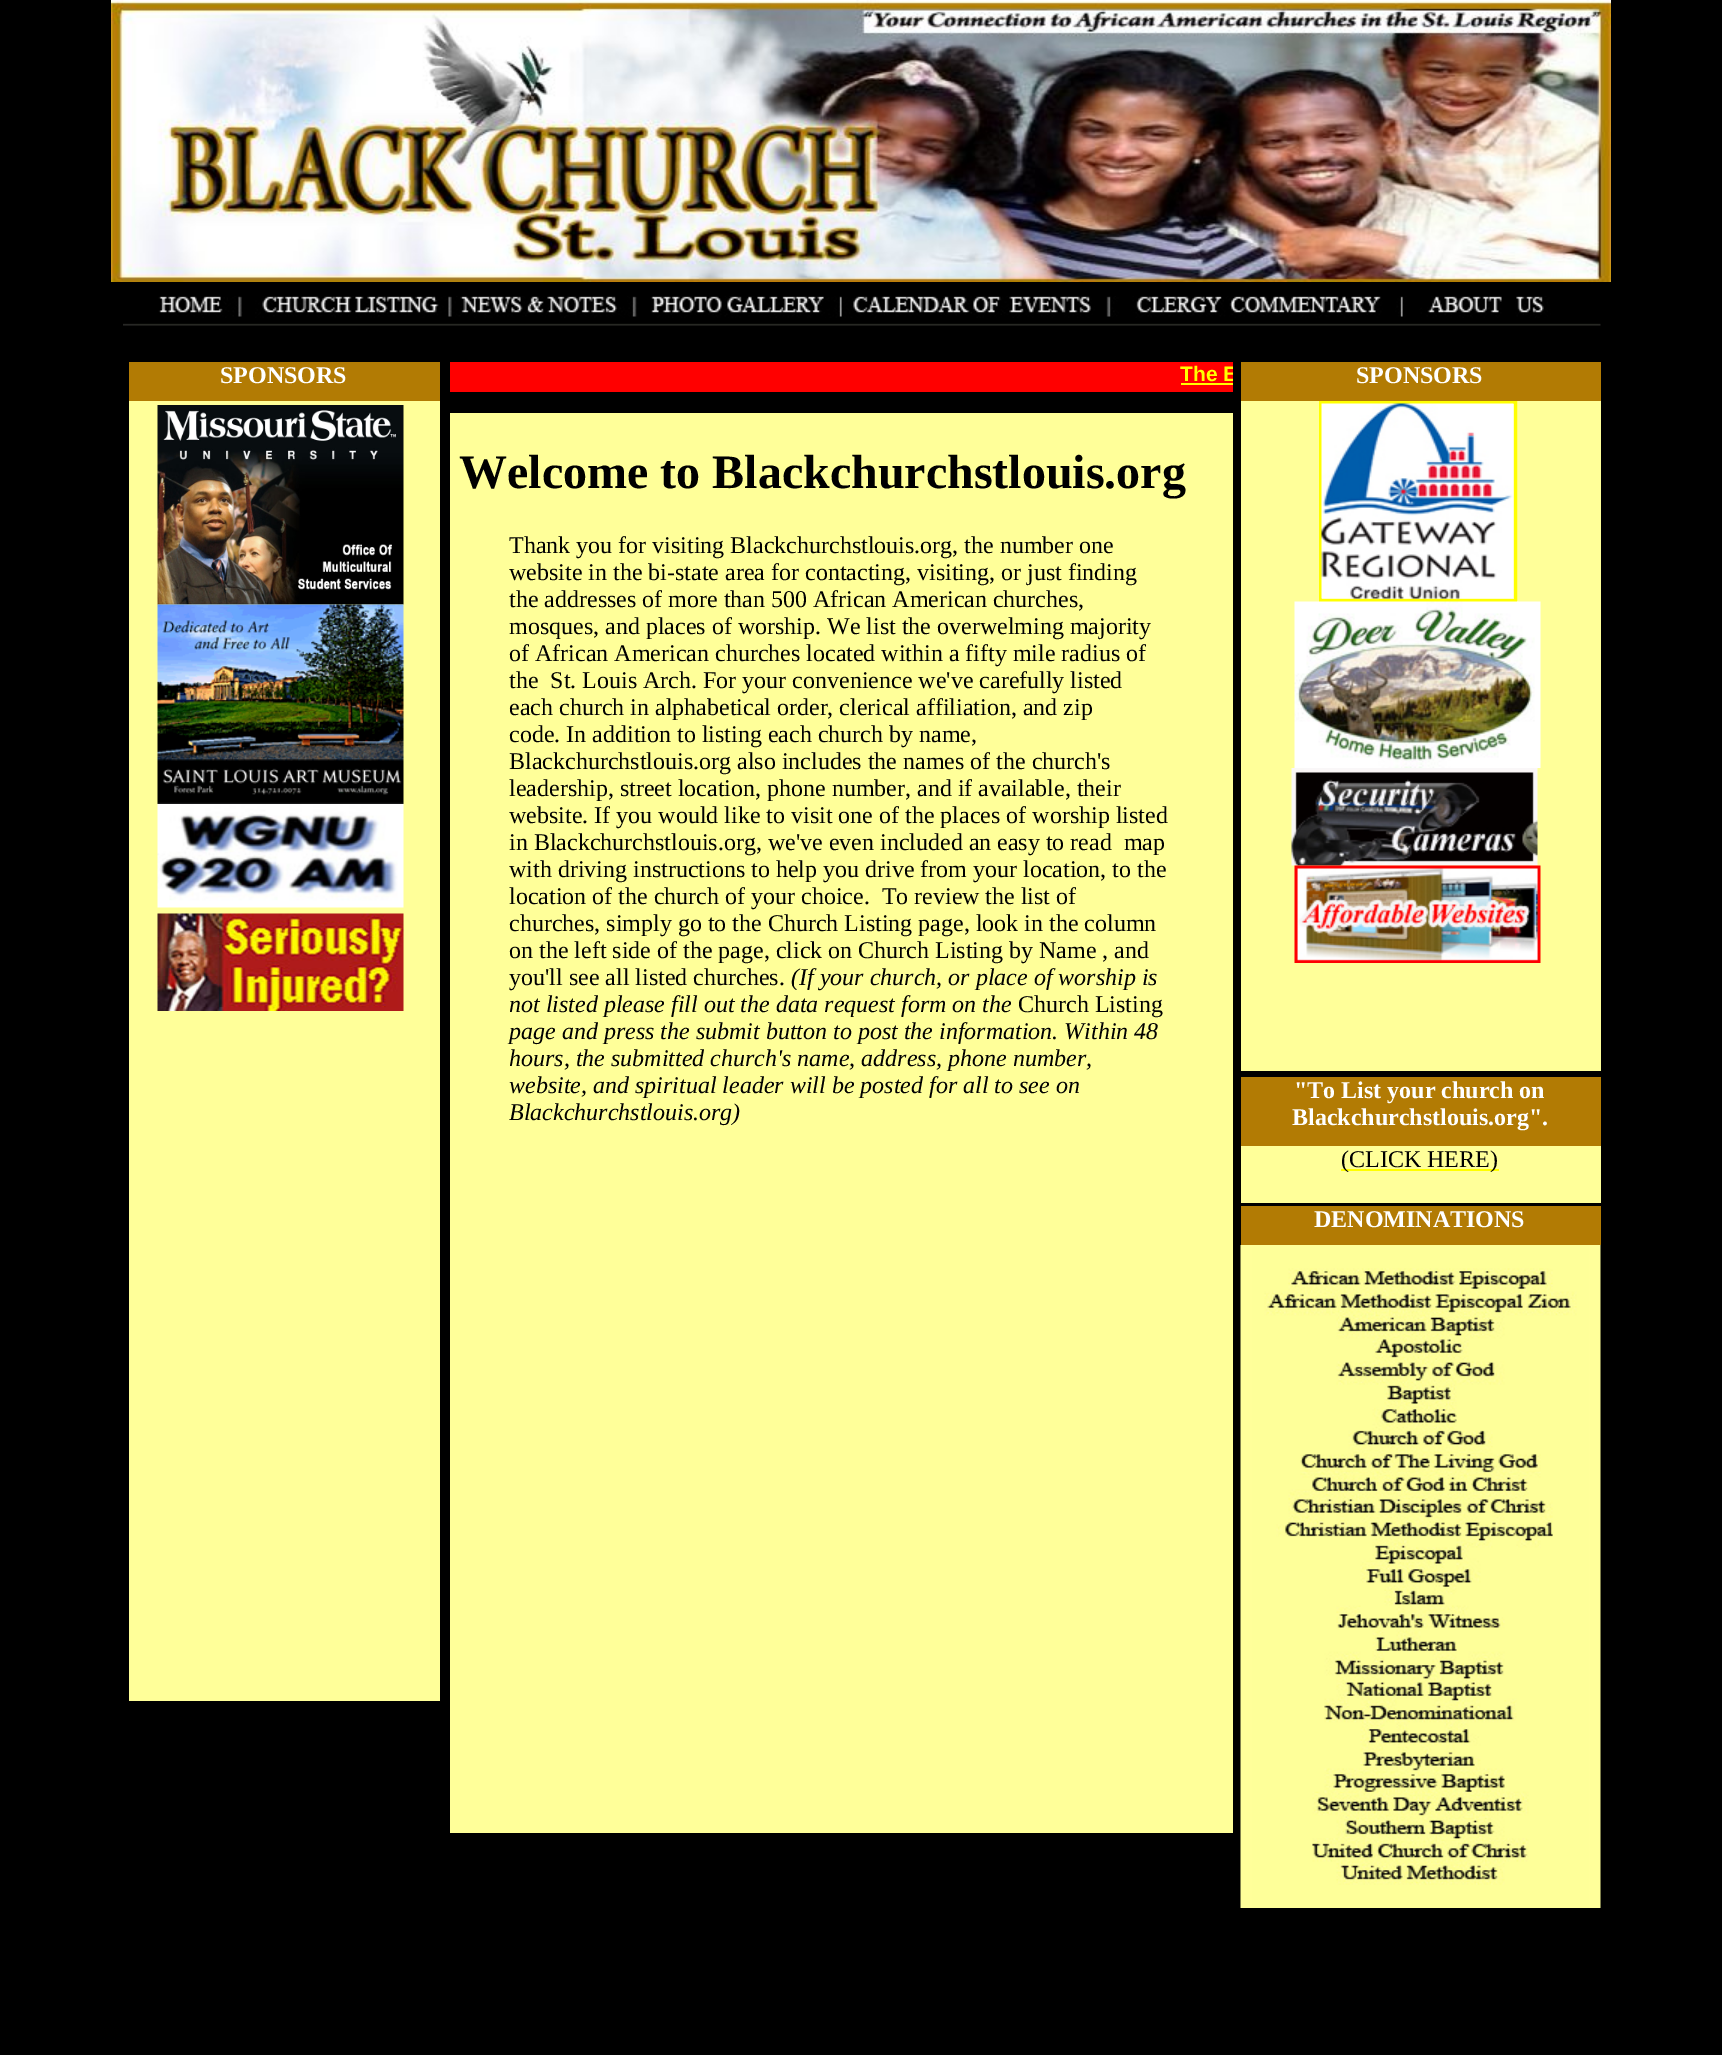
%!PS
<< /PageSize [1722 2055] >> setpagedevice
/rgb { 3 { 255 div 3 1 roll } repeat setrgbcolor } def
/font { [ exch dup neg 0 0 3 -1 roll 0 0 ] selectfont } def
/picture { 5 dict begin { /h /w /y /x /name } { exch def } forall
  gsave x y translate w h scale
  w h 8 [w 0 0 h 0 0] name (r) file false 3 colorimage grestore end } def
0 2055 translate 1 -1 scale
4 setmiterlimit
0 0 0 rgb
0 0 1722 2055 rectfill
(img/1.rgb) 111 0 1500 282 picture
(img/2.rgb) 123 296 1478 30 picture
255 255 153 rgb
129 401 311 1300 rectfill
178 123 4 rgb
129 362 311 39 rectfill
(img/3.rgb) 157 405 247 200 picture
(img/4.rgb) 157 604 247 200 picture
(img/5.rgb) 157 804 247 104 picture
(img/6.rgb) 157 913 247 98 picture
[
  [450 362 783 30 255 0 0]
  [1181 383 52 2 255 255 0]
  [1241 401 360 670 255 255 153]
  [1241 362 360 39 178 123 4]
] { aload pop rgb rectfill } forall
255 255 0 rgb
3 setlinewidth
1320.5 402.5 195 198 rectstroke
(img/7.rgb) 1321 403 193 196 picture
(img/8.rgb) 1294 601 247 167 picture
(img/9.rgb) 1291 768 247 98 picture
(img/10.rgb) 1294 865 247 98 picture
[
  [450 413 783 1420 255 255 153]
  [1241 1077 360 69 178 123 4]
  [1241 1146 360 57 255 255 153]
  [1341 1169 158 2 255 255 0]
  [1241 1206 360 39 178 123 4]
] { aload pop rgb rectfill } forall
(img/11.rgb) 1240 1245 361 663 picture
/LiberationSerif-Bold 24 font
255 255 255 rgb
220 383 moveto (SPONSORS) show
gsave
450 362 783 30 rectclip
/LiberationSans-Bold 21 font
255 255 0 rgb
1180 381 moveto (The E) show
grestore
1356 383 moveto (SPONSORS) show
/LiberationSerif-Bold 48 font
0 0 0 rgb
459 488 moveto (Welcome to Blackchurchstlouis.org) show
/LiberationSerif-Regular 24 font
[
  [(Thank you for visiting Blackchurchstlouis.org, the number one) 509 553]
  [(website in the bi-state area for contacting, visiting, or just finding) 509 580]
  [(the addresses of more than 500 African American churches,) 509 607]
  [(mosques, and places of worship. We list the overwelming majority) 509 634]
  [(of African American churches located within a fifty mile radius of) 509 661]
  [(the  St. Louis Arch. For your convenience we've carefully listed) 509 688]
  [(each church in alphabetical order, clerical affiliation, and zip) 509 715]
  [(code. In addition to listing each church by name,) 509 742]
  [(Blackchurchstlouis.org also includes the names of the church's) 509 769]
  [(leadership, street location, phone number, and if available, their) 509 796]
  [(website. If you would like to visit one of the places of worship listed) 509 823]
  [(in Blackchurchstlouis.org, we've even included an easy to read  map) 509 850]
  [(with driving instructions to help you drive from your location, to the) 509 877]
  [(location of the church of your choice.  To review the list of) 509 904]
  [(churches, simply go to the Church Listing page, look in the column) 509 931]
  [(on the left side of the page, click on Church Listing by Name , and) 509 958]
  [(you'll see all listed churches.) 509 985]
] { aload pop moveto show } forall
/LiberationSerif-Italic 24 font
791 985 moveto (\(If your church, or place of worship is) show
509 1012 moveto (not listed please fill out the data request form on the) show
/LiberationSerif-Regular 24 font
1018 1012 moveto (Church Listing) show
/LiberationSerif-Italic 24 font
[
  [(page and press the submit button to post the information. Within 48) 509 1039]
  [(hours, the submitted church's name, address, phone number,) 509 1066]
  [(website, and spiritual leader will be posted for all to see on) 509 1093]
  [(Blackchurchstlouis.org\)) 509 1120]
] { aload pop moveto show } forall
/LiberationSerif-Bold 24 font
255 255 255 rgb
1294 1098 moveto ("To List your church on) show
1292 1125 moveto (Blackchurchstlouis.org".) show
/LiberationSerif-Regular 24 font
0 0 0 rgb
1341 1167 moveto (\(CLICK HERE\)) show
/LiberationSerif-Bold 24 font
255 255 255 rgb
1314 1227 moveto (DENOMINATIONS) show
showpage
